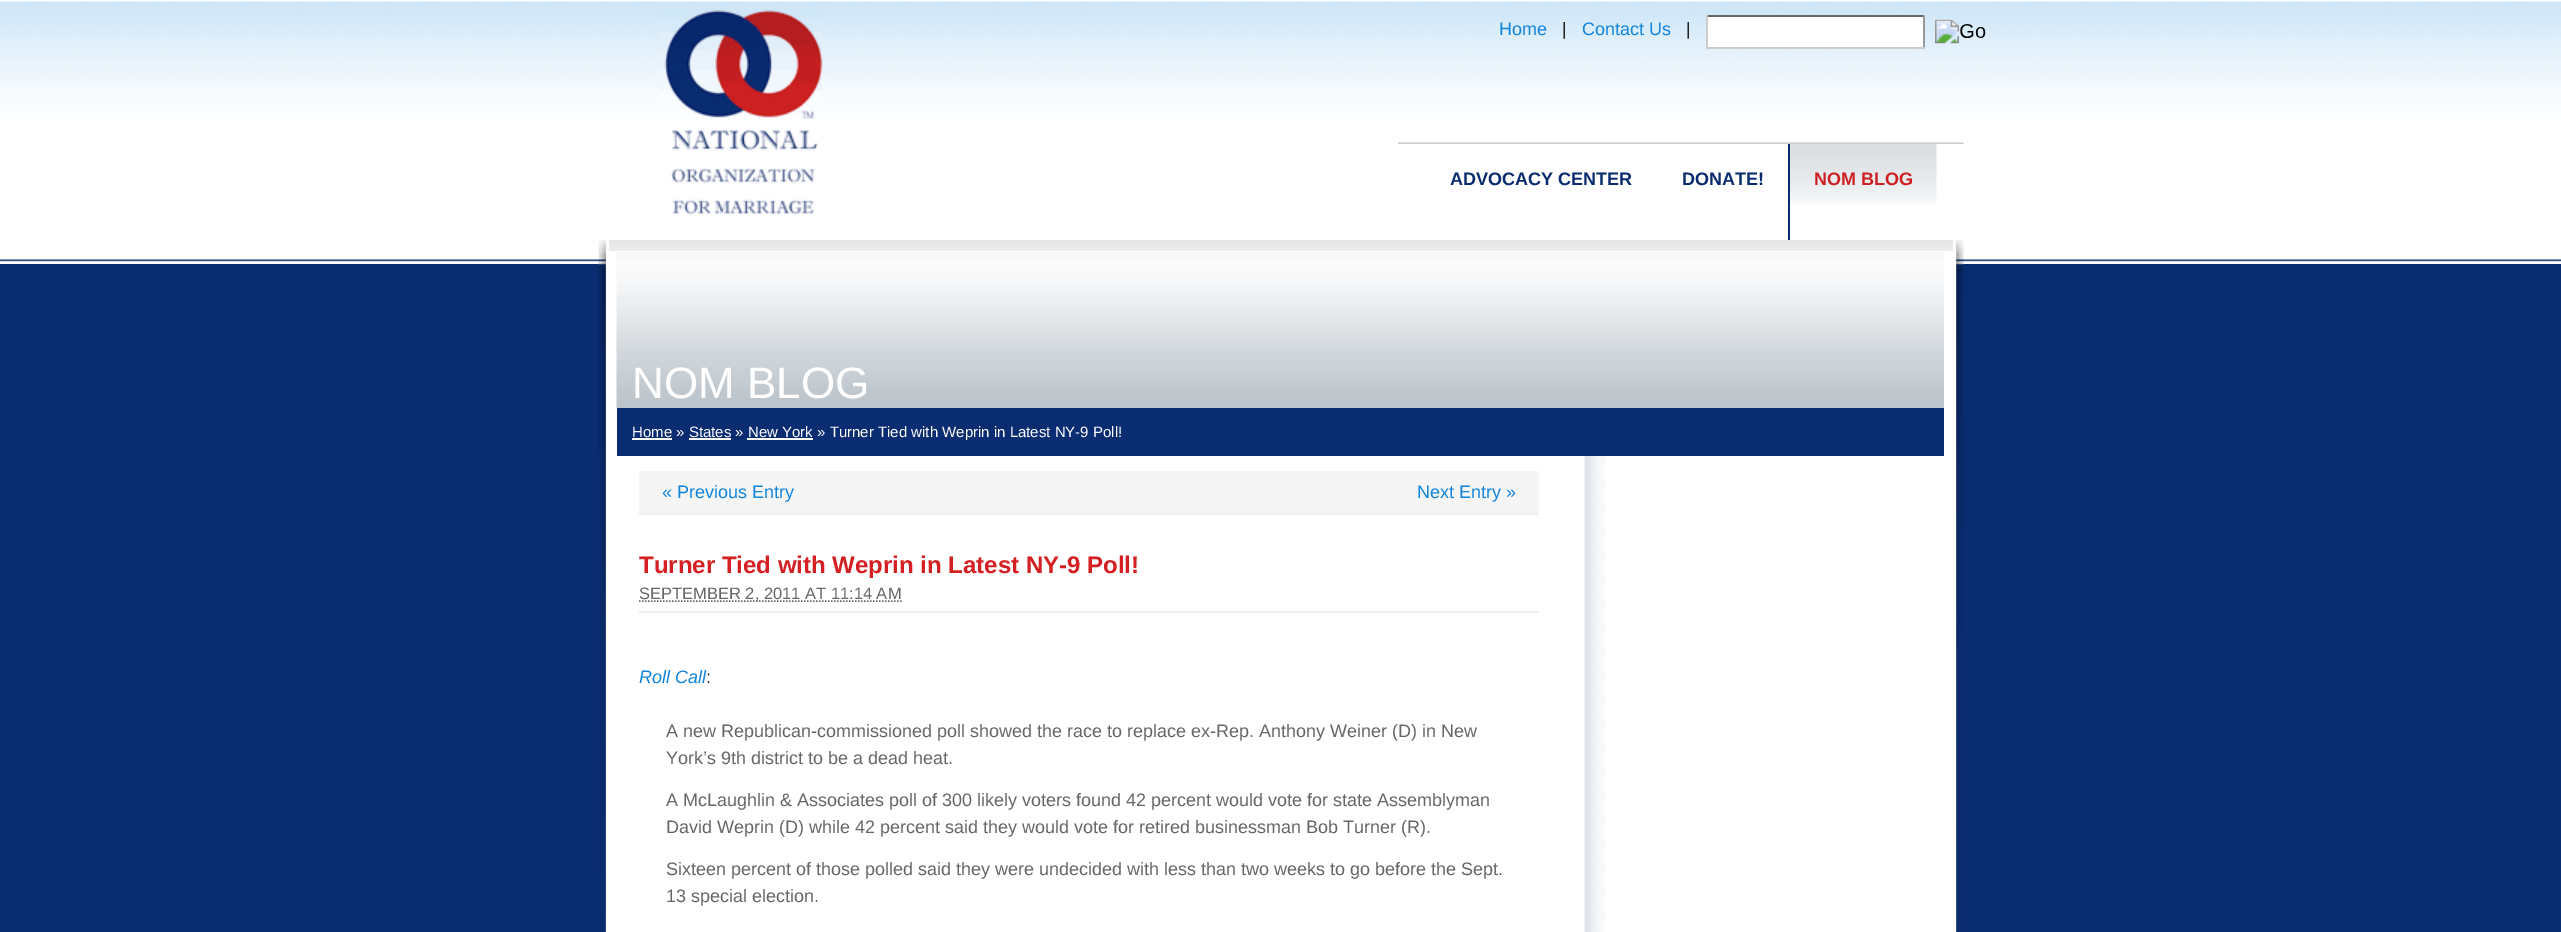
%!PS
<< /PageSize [2561 932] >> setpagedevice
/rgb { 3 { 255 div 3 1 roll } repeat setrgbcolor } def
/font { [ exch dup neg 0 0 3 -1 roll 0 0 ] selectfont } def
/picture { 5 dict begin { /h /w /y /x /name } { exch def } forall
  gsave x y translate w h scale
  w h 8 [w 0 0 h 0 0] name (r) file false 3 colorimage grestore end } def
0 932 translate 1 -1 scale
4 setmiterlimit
10 44 112 rgb
0 0 2561 932 rectfill
(img/1.rgb) 0 0 2561 264 picture
(img/2.rgb) 660 10 163 205 picture
[
  [1708 17 215 30 255 255 255]
  [1706 15 219 2 102 102 102]
  [1923 15 2 33 153 153 153]
  [1706 47 219 2 204 204 204]
  [1706 15 2 33 204 204 204]
] { aload pop rgb rectfill } forall
(img/3.rgb) 1935 19 51 25 picture
(img/4.rgb) 1398 142 566 2 picture
(img/5.rgb) 1790 144 147 60 picture
9 43 111 rgb
1788 144 2 96 rectfill
(img/6.rgb) 598 240 1366 692 picture
255 255 255 rgb
606 251 1350 681 rectfill
(img/7.rgb) 616 252 1328 156 picture
[
  [617 408 1327 48 10 44 112]
  [632 438 40 2 255 255 255]
  [689 438 42 2 255 255 255]
  [747 438 66 2 255 255 255]
] { aload pop rgb rectfill } forall
(img/8.rgb) 1584 456 22 476 picture
[
  [639 471 900 42 245 245 245]
  [639 513 900 2 238 238 238]
  [639 611 900 2 238 238 238]
] { aload pop rgb rectfill } forall
102 102 102 rgb
1.5 setlinewidth
[1.5 1.5] 0 setdash
639 601 moveto 901.5 601 lineto stroke
/LiberationSans-Regular 18 font
17 132 220 rgb
1499 35 moveto (Home) show
34 34 34 rgb
1562 35 moveto (|) show
17 132 220 rgb
1582 35 moveto (Contact Us) show
34 34 34 rgb
1686 35 moveto (|) show
/LiberationSans-Bold 18 font
9 43 111 rgb
1450 185 moveto (ADVOCACY CENTER) show
1682 185 moveto (DONATE!) show
206 32 35 rgb
1814 185 moveto (NOM BLOG) show
/LiberationSans-Regular 44 font
255 255 255 rgb
632 398 moveto (NOM BLOG) show
/LiberationSans-Regular 15 font
632 437 moveto (Home » States » New York » Turner Tied with Weprin in Latest NY-9 Poll!) show
/LiberationSans-Regular 18 font
17 132 220 rgb
662 498 moveto (« Previous Entry) show
1417 498 moveto (Next Entry ») show
/LiberationSans-Bold 24 font
212 32 34 rgb
639 573 moveto (Turner Tied with Weprin in Latest NY-9 Poll!) show
/LiberationSans-Regular 16.5 font
102 102 102 rgb
639 599 moveto (SEPTEMBER 2, 2011 AT 11:14 AM) show
/LiberationSans-Italic 18 font
17 132 220 rgb
639 683 moveto (Roll Call) show
/LiberationSans-Regular 18 font
34 34 34 rgb
706 683 moveto (:) show
102 102 102 rgb
[
  [(A new Republican-commissioned poll showed the race to replace ex-Rep. Anthony Weiner \(D\) in New) 666 737]
  [(York’s 9th district to be a dead heat.) 666 764]
  [(A McLaughlin & Associates poll of 300 likely voters found 42 percent would vote for state Assemblyman) 666 806]
  [(David Weprin \(D\) while 42 percent said they would vote for retired businessman Bob Turner \(R\).) 666 833]
  [(Sixteen percent of those polled said they were undecided with less than two weeks to go before the Sept.) 666 875]
  [(13 special election.) 666 902]
] { aload pop moveto show } forall
showpage
